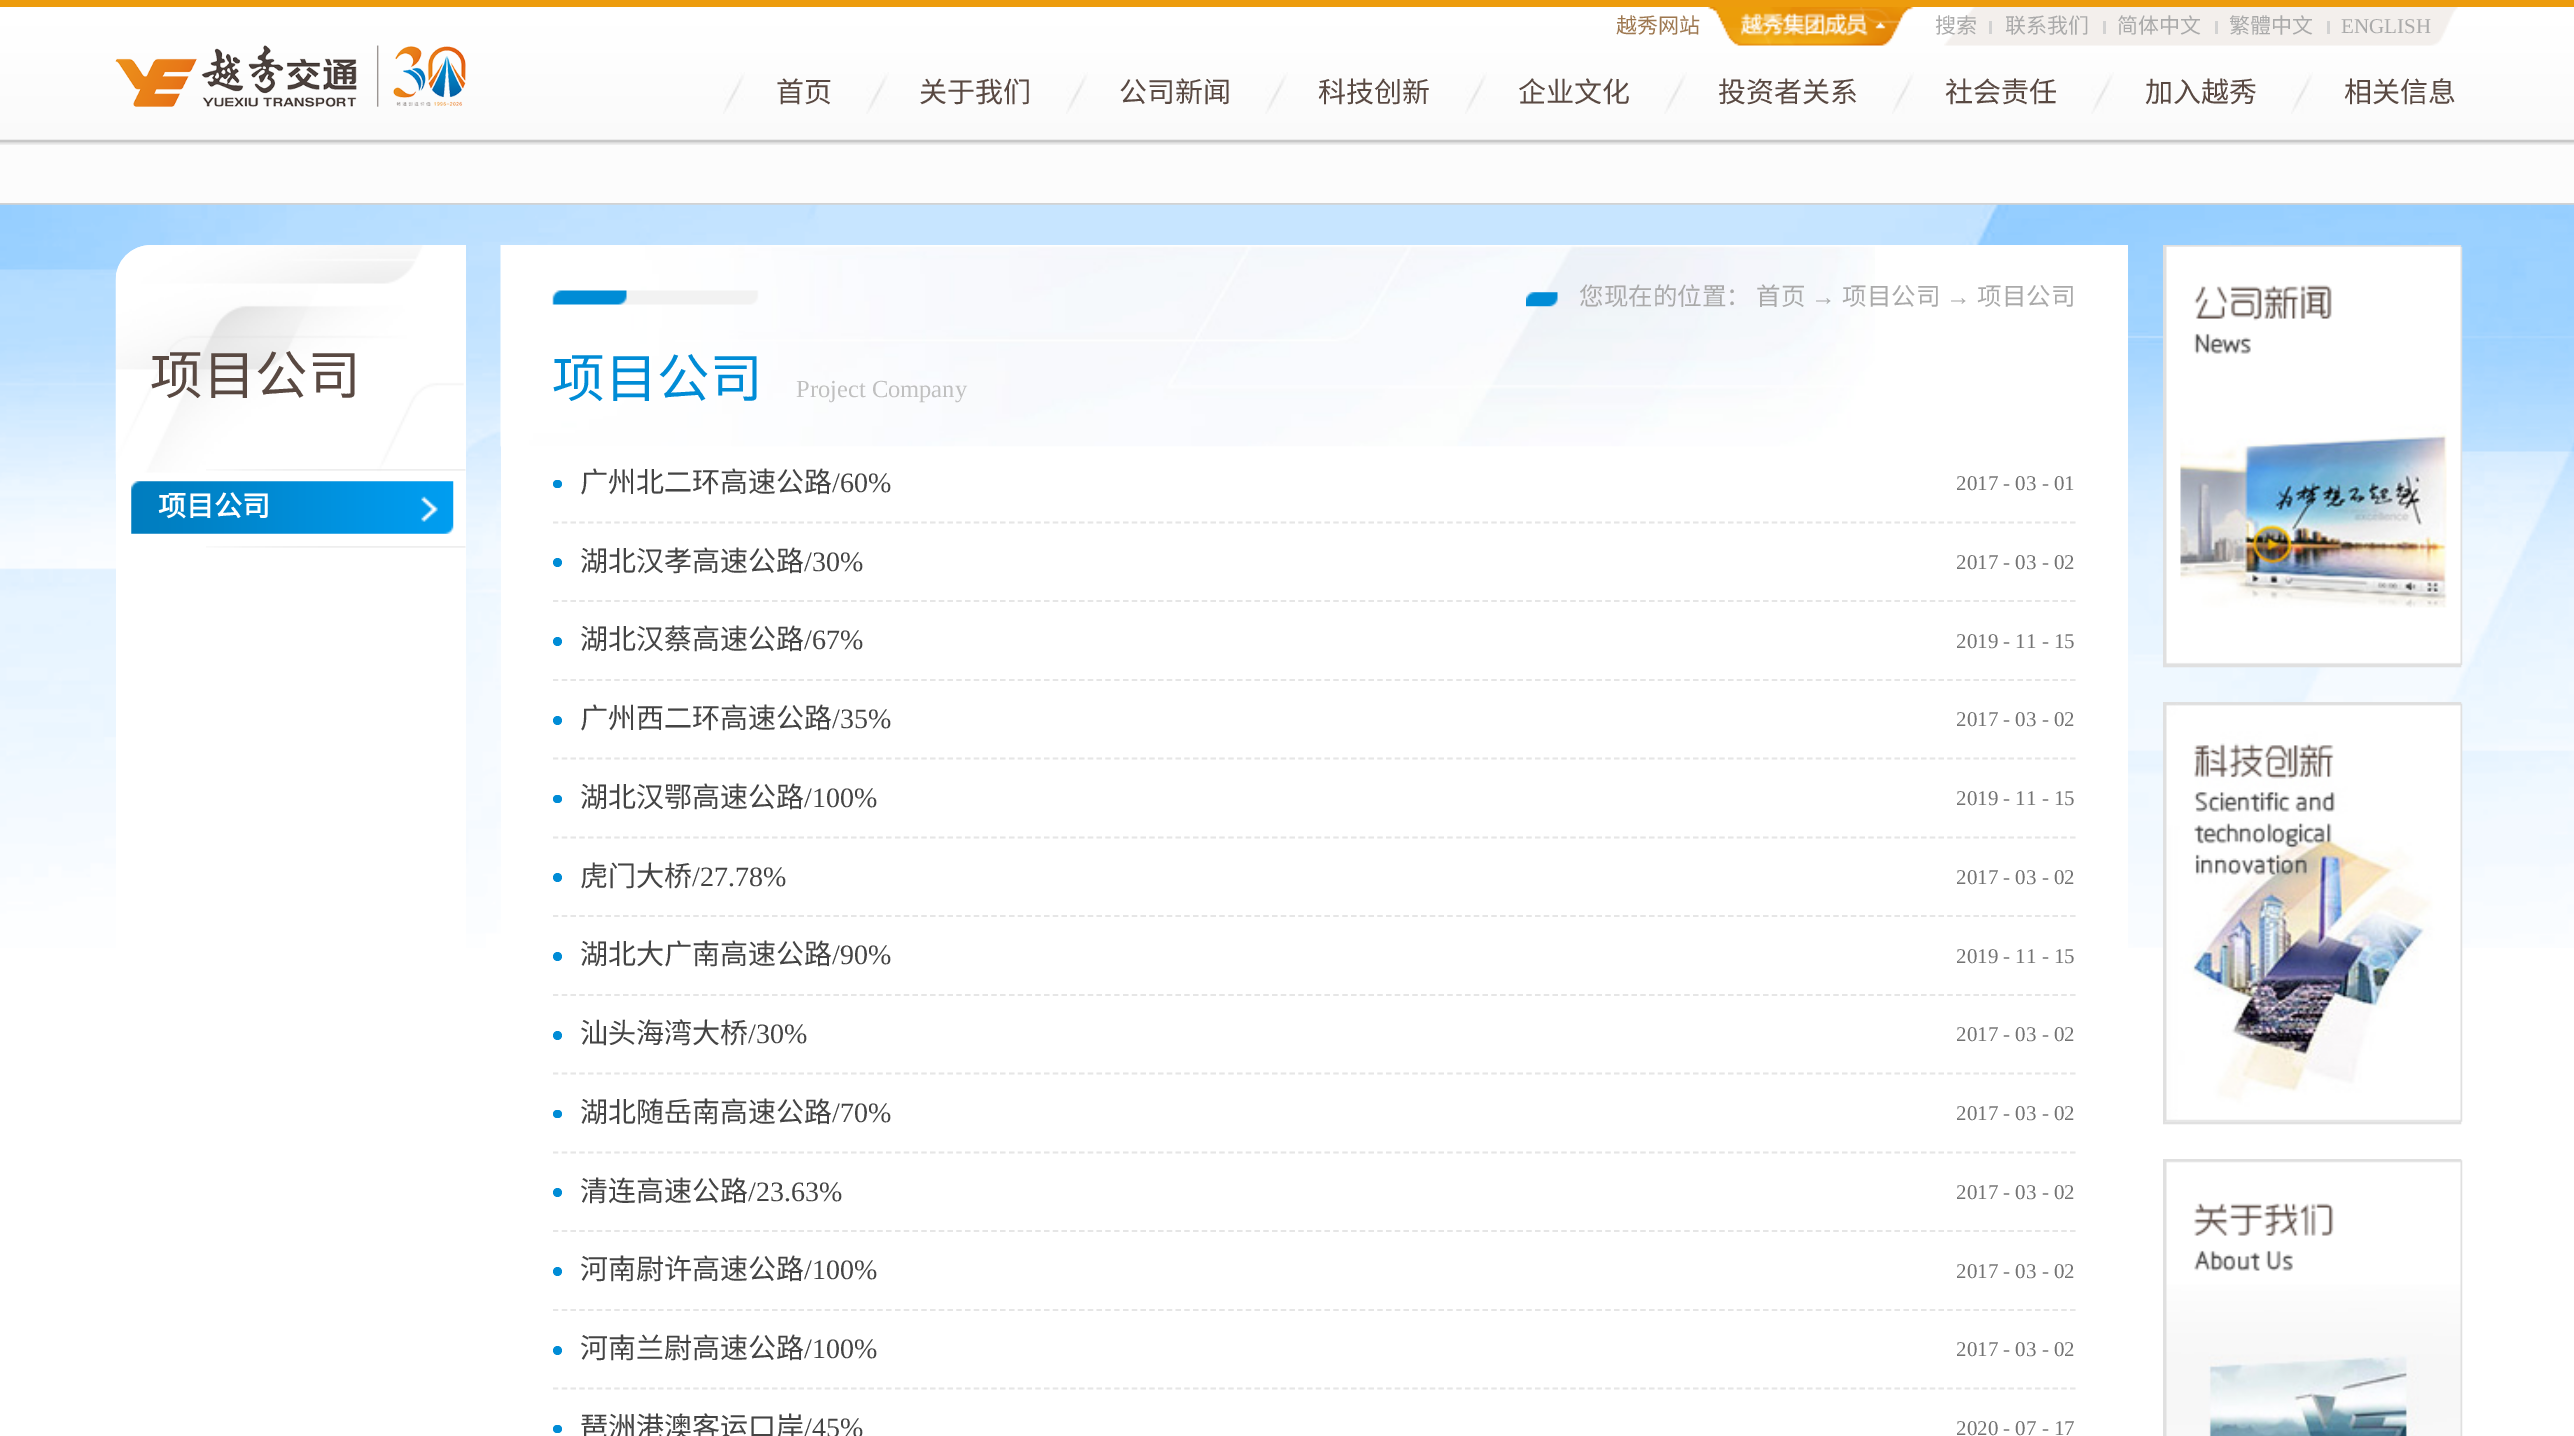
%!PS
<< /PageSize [2574 1436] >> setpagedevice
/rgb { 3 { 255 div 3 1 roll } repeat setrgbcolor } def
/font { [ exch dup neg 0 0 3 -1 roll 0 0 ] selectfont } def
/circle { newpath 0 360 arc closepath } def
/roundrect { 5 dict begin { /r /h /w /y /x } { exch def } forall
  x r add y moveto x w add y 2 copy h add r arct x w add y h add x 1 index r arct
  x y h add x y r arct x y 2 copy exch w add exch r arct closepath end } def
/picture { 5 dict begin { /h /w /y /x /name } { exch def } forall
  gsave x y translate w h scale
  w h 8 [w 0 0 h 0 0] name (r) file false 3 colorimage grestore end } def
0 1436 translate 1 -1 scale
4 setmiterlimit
255 255 255 rgb
0 0 2574 1436 rectfill
237 156 13 rgb
0 0 2574 7 rectfill
(img/1.rgb) 0 7 2574 138 picture
(img/2.rgb) 1944 7 514 39 picture
(img/3.rgb) 1708 7 206 39 picture
[
  [1989 21 3 13 210 210 210]
  [2103 21 3 13 210 210 210]
  [2215 21 3 13 210 210 210]
  [2327 21 3 13 210 210 210]
] { aload pop rgb rectfill } forall
(img/4.rgb) 115 45 351 62 picture
(img/5.rgb) 723 72 22 42 picture
(img/6.rgb) 866 72 23 42 picture
(img/5.rgb) 1066 72 22 42 picture
(img/7.rgb) 1265 72 23 42 picture
(img/5.rgb) 1465 72 22 42 picture
(img/8.rgb) 1664 72 23 42 picture
(img/9.rgb) 1892 72 22 42 picture
(img/6.rgb) 2091 72 23 42 picture
(img/10.rgb) 2291 72 22 42 picture
252 252 252 rgb
0 145 2574 58 rectfill
210 210 210 rgb
0 203 2574 2 rectfill
(img/11.rgb) 0 204 2574 744 picture
255 255 255 rgb
151 245 moveto 466 245 lineto 466 1173 lineto 116 1173 lineto 116 280 lineto 116 260.5 131.5 245 151 245 curveto closepath fill
(img/12.rgb) 115 245 349 229 picture
(img/13.rgb) 206 469 260 2 picture
(img/14.rgb) 206 546 260 2 picture
(img/15.rgb) 131 481 323 53 picture
501 245 1627 703 rectfill
(img/16.rgb) 500 245 1375 202 picture
(img/17.rgb) 1526 292 32 15 picture
230 230 230 rgb
1.8 setlinewidth
[5.25 3.52] 0 setdash
553 522.5 moveto 2075.5 522.5 lineto stroke
0 140 214 rgb
553 480 9 8 4 roundrect fill
230 230 230 rgb
553 601 moveto 2075.5 601 lineto stroke
0 140 214 rgb
557.5 562.5 4.5 circle fill
230 230 230 rgb
553 680 moveto 2075.5 680 lineto stroke
0 140 214 rgb
557.5 641.5 4.5 circle fill
230 230 230 rgb
553 758.5 moveto 2075.5 758.5 lineto stroke
0 140 214 rgb
557.5 720.5 4.5 circle fill
230 230 230 rgb
553 837.5 moveto 2075.5 837.5 lineto stroke
0 140 214 rgb
553 795 9 8 4 roundrect fill
230 230 230 rgb
553 916 moveto 2075.5 916 lineto stroke
0 140 214 rgb
557.5 877.5 4.5 circle fill
230 230 230 rgb
553 995 moveto 2075.5 995 lineto stroke
0 140 214 rgb
557.5 956.5 4.5 circle fill
230 230 230 rgb
553 1073.5 moveto 2075.5 1073.5 lineto stroke
0 140 214 rgb
557.5 1035.5 4.5 circle fill
230 230 230 rgb
553 1152.5 moveto 2075.5 1152.5 lineto stroke
0 140 214 rgb
553 1110 9 8 4 roundrect fill
230 230 230 rgb
553 1231 moveto 2075.5 1231 lineto stroke
0 140 214 rgb
557.5 1192.5 4.5 circle fill
230 230 230 rgb
553 1310 moveto 2075.5 1310 lineto stroke
0 140 214 rgb
557.5 1271.5 4.5 circle fill
230 230 230 rgb
553 1388.5 moveto 2075.5 1388.5 lineto stroke
0 140 214 rgb
557.5 1350.5 4.5 circle fill
553 1425 9 8 4 roundrect fill
224 224 224 rgb
2 setlinewidth
[] 0 setdash
2164 246 296 420 rectstroke
(img/18.rgb) 2165 246 298 419 picture
2164 703 296 420 rectstroke
(img/19.rgb) 2165 703 298 419 picture
2164 1160 296 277 rectstroke
(img/20.rgb) 2165 1160 298 276 picture
/NotoSansCJKSC-Regular 21 font
158 120 80 rgb
1616 33 moveto (越秀网站) show
170 170 170 rgb
[
  [(搜索) 1935 33]
  [(联系我们) 2005 33]
  [(简体中文) 2117 33]
  [(繁體中文) 2229 33]
] { aload pop moveto show } forall
/LiberationSerif-Regular 21 font
2341 33 moveto (ENGLISH) show
/NotoSansCJKSC-Regular 28 font
89 73 66 rgb
[
  [(首页) 776 102]
  [(关于我们) 919 102]
  [(公司新闻) 1119 102]
  [(科技创新) 1318 102]
  [(企业文化) 1518 102]
  [(投资者关系) 1718 102]
  [(社会责任) 1945 102]
  [(加入越秀) 2145 102]
  [(相关信息) 2344 102]
] { aload pop moveto show } forall
/NotoSansCJKSC-Regular 52.5 font
150 394 moveto (项目公司) show
/NotoSansCJKSC-Bold 28 font
255 255 255 rgb
158 516 moveto (项目公司) show
/NotoSansCJKSC-Regular 24.5 font
170 170 170 rgb
1579 305 moveto (您现在的位置：) show
1756 305 moveto (首页) show
/LiberationSerif-Regular 24.5 font
1811 305 moveto (→) show
/NotoSansCJKSC-Regular 24.5 font
1842 305 moveto (项目公司) show
/LiberationSerif-Regular 24.5 font
1946 305 moveto (→) show
/NotoSansCJKSC-Regular 24.5 font
1977 305 moveto (项目公司) show
/NotoSansCJKSC-Regular 52.5 font
0 140 214 rgb
552 397 moveto (项目公司) show
/LiberationSerif-Regular 24.5 font
192 192 192 rgb
796 397 moveto (Project Company) show
/NotoSansCJKSC-Regular 28 font
68 68 68 rgb
580 492 moveto (广州北二环高速公路) show
/LiberationSerif-Regular 28 font
832 492 moveto (/60%) show
/LiberationSerif-Regular 21 font
115 115 115 rgb
1956 490 moveto (2017 - 03 - 01) show
/NotoSansCJKSC-Regular 28 font
68 68 68 rgb
580 571 moveto (湖北汉孝高速公路) show
/LiberationSerif-Regular 28 font
804 571 moveto (/30%) show
/LiberationSerif-Regular 21 font
115 115 115 rgb
1956 569 moveto (2017 - 03 - 02) show
/NotoSansCJKSC-Regular 28 font
68 68 68 rgb
580 649 moveto (湖北汉蔡高速公路) show
/LiberationSerif-Regular 28 font
804 649 moveto (/67%) show
/LiberationSerif-Regular 21 font
115 115 115 rgb
1956 648 moveto (2019 - 11 - 15) show
/NotoSansCJKSC-Regular 28 font
68 68 68 rgb
580 728 moveto (广州西二环高速公路) show
/LiberationSerif-Regular 28 font
832 728 moveto (/35%) show
/LiberationSerif-Regular 21 font
115 115 115 rgb
1956 726 moveto (2017 - 03 - 02) show
/NotoSansCJKSC-Regular 28 font
68 68 68 rgb
580 807 moveto (湖北汉鄂高速公路) show
/LiberationSerif-Regular 28 font
804 807 moveto (/100%) show
/LiberationSerif-Regular 21 font
115 115 115 rgb
1956 805 moveto (2019 - 11 - 15) show
/NotoSansCJKSC-Regular 28 font
68 68 68 rgb
580 886 moveto (虎门大桥) show
/LiberationSerif-Regular 28 font
692 886 moveto (/27.78%) show
/LiberationSerif-Regular 21 font
115 115 115 rgb
1956 884 moveto (2017 - 03 - 02) show
/NotoSansCJKSC-Regular 28 font
68 68 68 rgb
580 964 moveto (湖北大广南高速公路) show
/LiberationSerif-Regular 28 font
832 964 moveto (/90%) show
/LiberationSerif-Regular 21 font
115 115 115 rgb
1956 963 moveto (2019 - 11 - 15) show
/NotoSansCJKSC-Regular 28 font
68 68 68 rgb
580 1043 moveto (汕头海湾大桥) show
/LiberationSerif-Regular 28 font
748 1043 moveto (/30%) show
/LiberationSerif-Regular 21 font
115 115 115 rgb
1956 1041 moveto (2017 - 03 - 02) show
/NotoSansCJKSC-Regular 28 font
68 68 68 rgb
580 1122 moveto (湖北随岳南高速公路) show
/LiberationSerif-Regular 28 font
832 1122 moveto (/70%) show
/LiberationSerif-Regular 21 font
115 115 115 rgb
1956 1120 moveto (2017 - 03 - 02) show
/NotoSansCJKSC-Regular 28 font
68 68 68 rgb
580 1201 moveto (清连高速公路) show
/LiberationSerif-Regular 28 font
748 1201 moveto (/23.63%) show
/LiberationSerif-Regular 21 font
115 115 115 rgb
1956 1199 moveto (2017 - 03 - 02) show
/NotoSansCJKSC-Regular 28 font
68 68 68 rgb
580 1279 moveto (河南尉许高速公路) show
/LiberationSerif-Regular 28 font
804 1279 moveto (/100%) show
/LiberationSerif-Regular 21 font
115 115 115 rgb
1956 1278 moveto (2017 - 03 - 02) show
/NotoSansCJKSC-Regular 28 font
68 68 68 rgb
580 1358 moveto (河南兰尉高速公路) show
/LiberationSerif-Regular 28 font
804 1358 moveto (/100%) show
/LiberationSerif-Regular 21 font
115 115 115 rgb
1956 1356 moveto (2017 - 03 - 02) show
/NotoSansCJKSC-Regular 28 font
68 68 68 rgb
580 1437 moveto (琶洲港澳客运口岸) show
/LiberationSerif-Regular 28 font
804 1437 moveto (/45%) show
/LiberationSerif-Regular 21 font
115 115 115 rgb
1956 1435 moveto (2020 - 07 - 17) show
showpage
